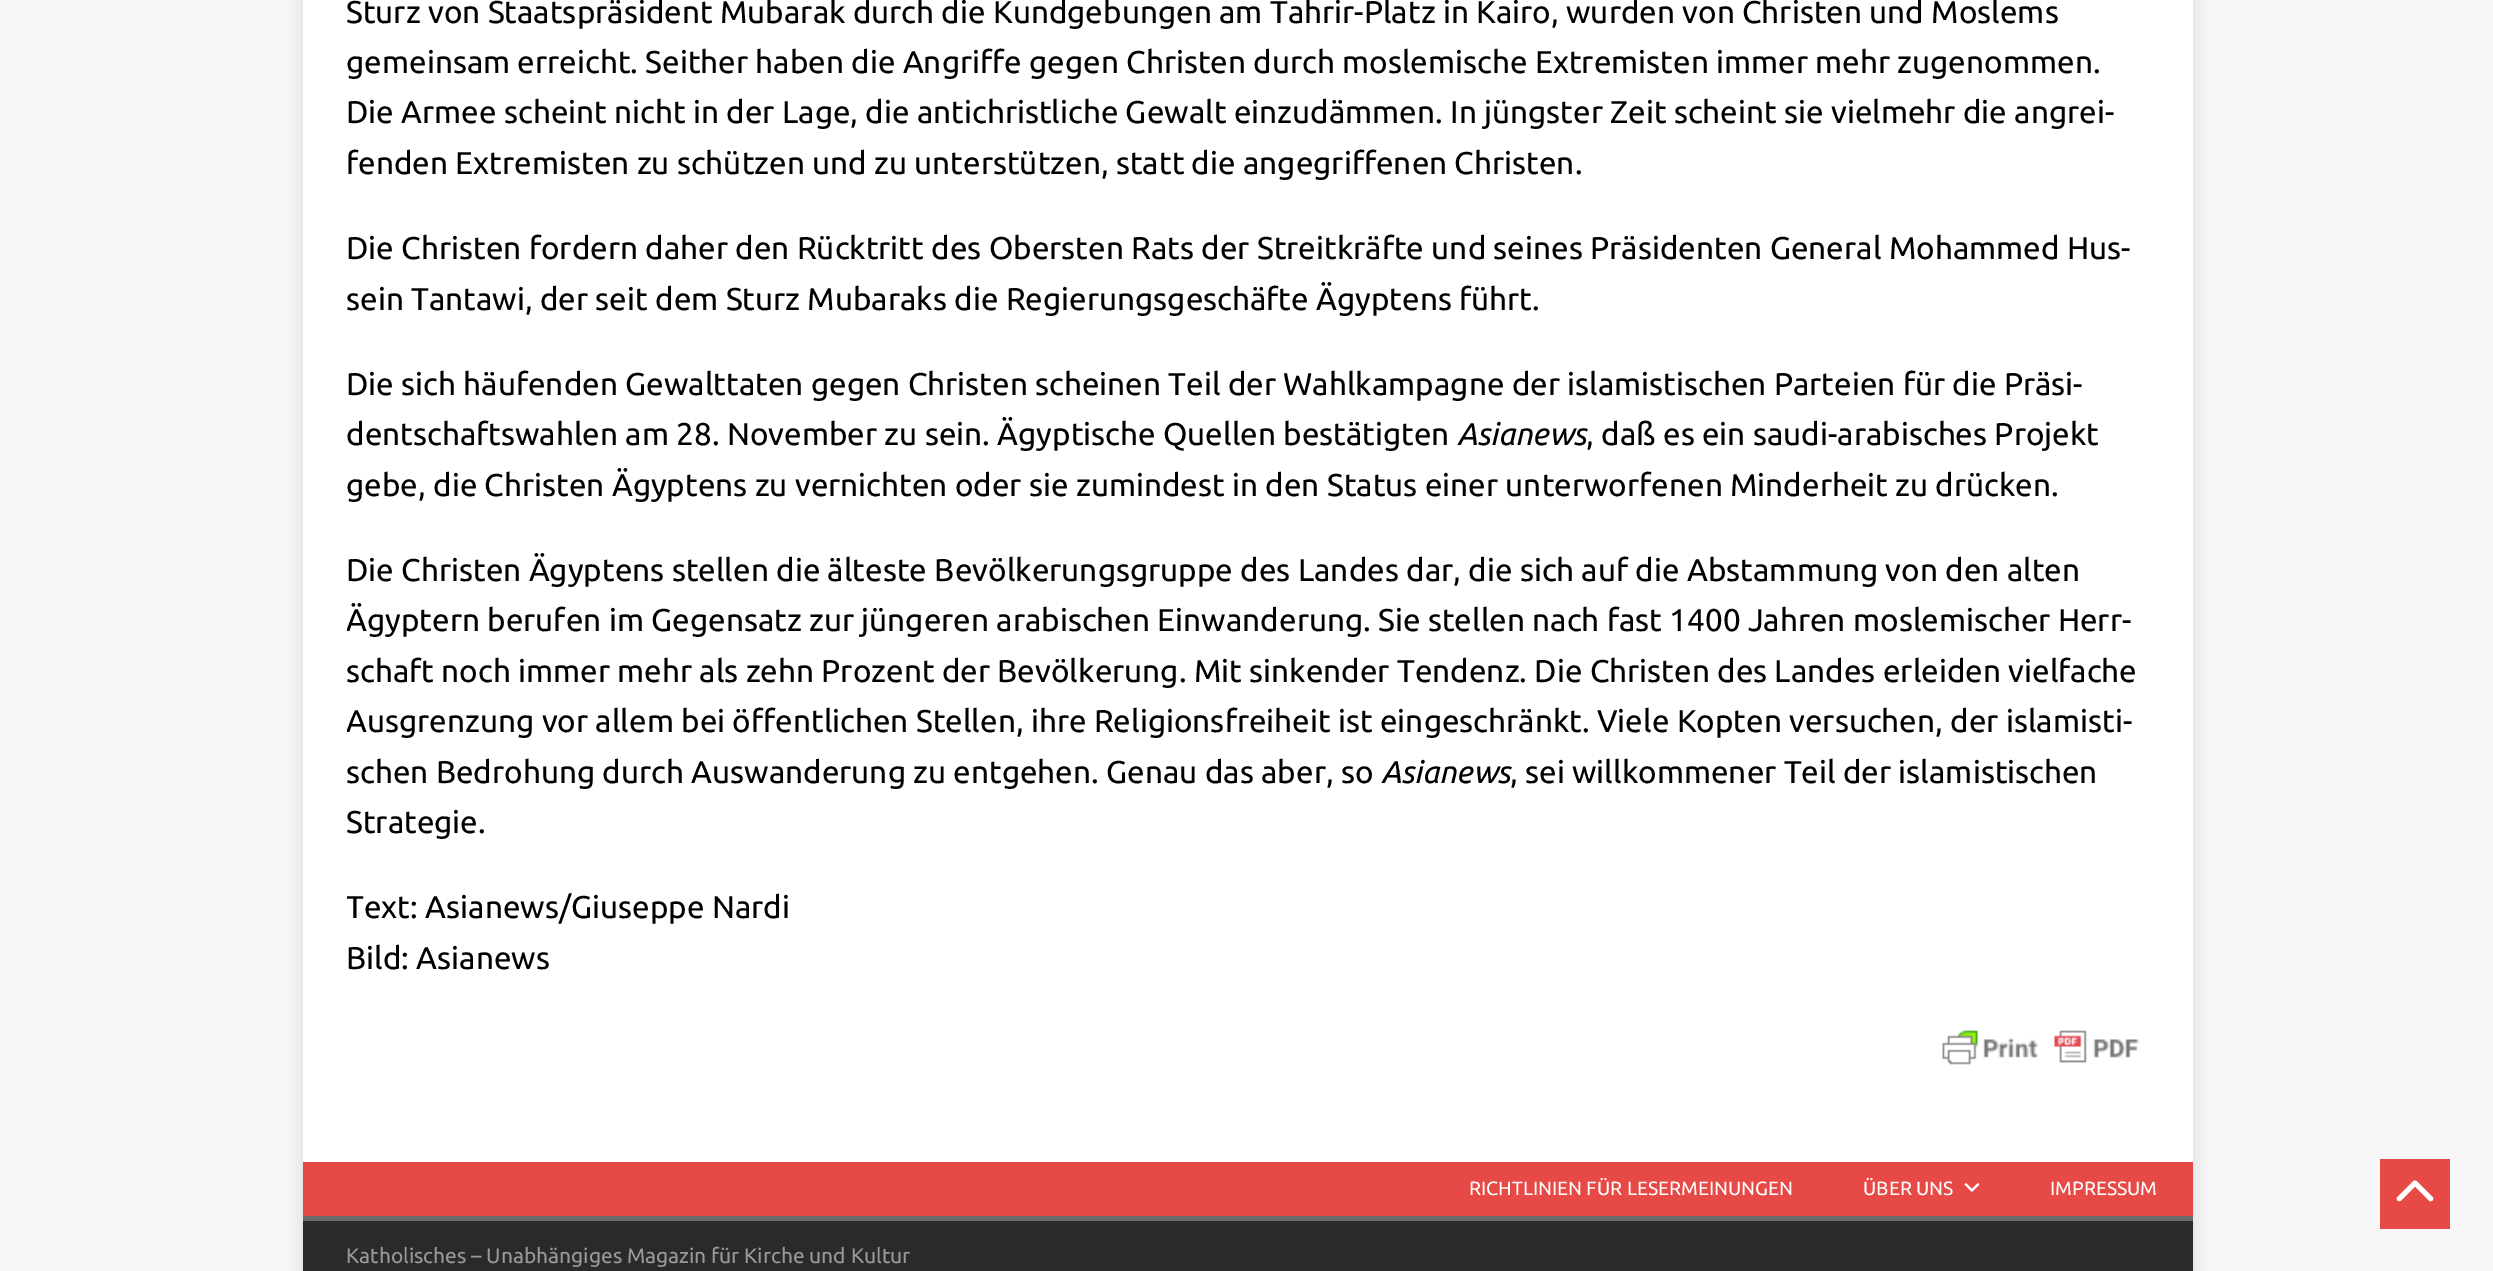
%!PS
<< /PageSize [2493 1271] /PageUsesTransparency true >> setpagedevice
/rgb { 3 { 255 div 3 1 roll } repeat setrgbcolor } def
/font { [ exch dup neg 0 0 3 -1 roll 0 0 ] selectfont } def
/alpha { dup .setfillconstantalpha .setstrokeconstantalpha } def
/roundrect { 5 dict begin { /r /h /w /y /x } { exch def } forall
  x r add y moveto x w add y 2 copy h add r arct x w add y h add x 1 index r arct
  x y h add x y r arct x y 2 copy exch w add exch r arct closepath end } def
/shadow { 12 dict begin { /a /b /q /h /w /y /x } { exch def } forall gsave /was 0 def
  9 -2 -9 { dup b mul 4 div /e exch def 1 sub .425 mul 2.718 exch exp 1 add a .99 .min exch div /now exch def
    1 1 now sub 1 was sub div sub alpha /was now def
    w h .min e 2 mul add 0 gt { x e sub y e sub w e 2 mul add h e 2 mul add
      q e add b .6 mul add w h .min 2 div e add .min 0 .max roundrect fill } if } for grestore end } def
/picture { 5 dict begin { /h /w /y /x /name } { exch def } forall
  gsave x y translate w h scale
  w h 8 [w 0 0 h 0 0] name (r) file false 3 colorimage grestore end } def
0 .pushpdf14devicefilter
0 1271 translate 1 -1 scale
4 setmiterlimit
247 247 247 rgb
0 0 2493 1271 rectfill
50 50 50 rgb
303 -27 1890 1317 0 9 0.17 shadow
255 255 255 rgb
303 0 1890 1162 rectfill
(img/1.rgb) 1942 1030 197 35 picture
230 73 70 rgb
303 1162 1890 54 rectfill
(img/2.rgb) 1964 1183 16 9 picture
[
  [303 1221 1890 50 42 42 42]
  [303 1216 1890 5 106 106 106]
  [2380 1159 70 70 230 73 70]
] { aload pop rgb rectfill } forall
(img/3.rgb) 2396 1180 38 22 picture
/Ubuntu-Regular 31.5 font
0 0 0 rgb
[
  [(Sturz von Staatspräsident Mubarak durch die Kundgebungen am Tahrir-Platz in Kairo, wurden von Christen und Moslems) 346 23]
  [(gemeinsam erreicht. Seither haben die Angriffe gegen Christen durch moslemische Extremisten immer mehr zugenommen.) 346 73]
  [(Die Armee scheint nicht in der Lage, die antichristliche Gewalt einzudämmen. In jüngster Zeit scheint sie vielmehr die angrei-) 346 123]
  [(fenden Extremisten zu schützen und zu unterstützen, statt die angegriffenen Christen.) 346 174]
  [(Die Christen fordern daher den Rücktritt des Obersten Rats der Streitkräfte und seines Präsidenten General Mohammed Hus-) 346 259]
  [(sein Tantawi, der seit dem Sturz Mubaraks die Regierungsgeschäfte Ägyptens führt.) 346 310]
  [(Die sich häufenden Gewalttaten gegen Christen scheinen Teil der Wahlkampagne der islamistischen Parteien für die Präsi-) 346 395]
  [(dentschaftswahlen am 28. November zu sein. Ägyptische Quellen bestätigten) 346 445]
] { aload pop moveto show } forall
/Ubuntu-Italic 31.5 font
1457 445 moveto (Asianews) show
/Ubuntu-Regular 31.5 font
[
  [(, daß es ein saudi-arabisches Projekt) 1586 445]
  [(gebe, die Christen Ägyptens zu vernichten oder sie zumindest in den Status einer unterworfenen Minderheit zu drücken.) 346 496]
  [(Die Christen Ägyptens stellen die älteste Bevölkerungsgruppe des Landes dar, die sich auf die Abstammung von den alten) 346 581]
] { aload pop moveto show } forall
gsave
347 0 1802 1118 rectclip
346 631 moveto (Ägyptern berufen im Gegensatz zur jüngeren arabischen Einwanderung. Sie stellen nach fast 1400 Jahren moslemischer Herr-) show
grestore
346 682 moveto (schaft noch immer mehr als zehn Prozent der Bevölkerung. Mit sinkender Tendenz. Die Christen des Landes erleiden vielfache) show
gsave
347 0 1802 1118 rectclip
346 732 moveto (Ausgrenzung vor allem bei öffentlichen Stellen, ihre Religionsfreiheit ist eingeschränkt. Viele Kopten versuchen, der islamisti-) show
grestore
346 783 moveto (schen Bedrohung durch Auswanderung zu entgehen. Genau das aber, so) show
/Ubuntu-Italic 31.5 font
1381 783 moveto (Asianews) show
/Ubuntu-Regular 31.5 font
1510 783 moveto (, sei willkommener Teil der islamistischen) show
346 833 moveto (Strategie.) show
gsave
347 0 1802 1118 rectclip
346 918 moveto (Text: Asianews/Giuseppe Nardi) show
grestore
346 969 moveto (Bild: Asianews) show
/Ubuntu-Regular 19.25 font
255 255 255 rgb
[
  [(RICHTLINIEN FÜR LESERMEINUNGEN) 1469 1195]
  [(ÜBER UNS) 1863 1195]
  [(IMPRESSUM) 2050 1195]
] { aload pop moveto show } forall
/Ubuntu-Regular 21 font
153 153 153 rgb
346 1263 moveto (Katholisches – Unabhängiges Magazin für Kirche und Kultur) show
.poppdf14devicefilter showpage
